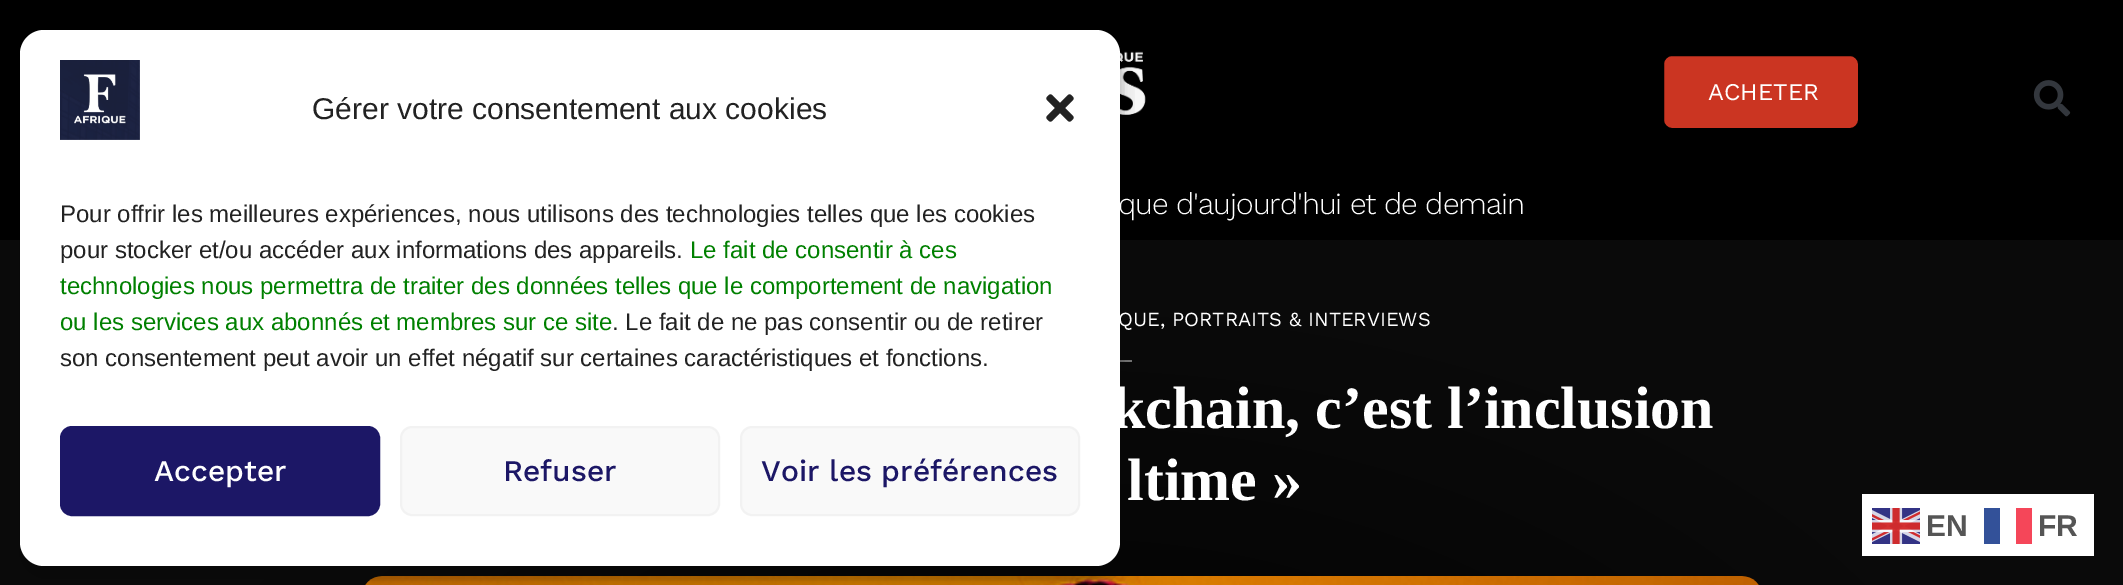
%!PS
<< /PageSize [2123 585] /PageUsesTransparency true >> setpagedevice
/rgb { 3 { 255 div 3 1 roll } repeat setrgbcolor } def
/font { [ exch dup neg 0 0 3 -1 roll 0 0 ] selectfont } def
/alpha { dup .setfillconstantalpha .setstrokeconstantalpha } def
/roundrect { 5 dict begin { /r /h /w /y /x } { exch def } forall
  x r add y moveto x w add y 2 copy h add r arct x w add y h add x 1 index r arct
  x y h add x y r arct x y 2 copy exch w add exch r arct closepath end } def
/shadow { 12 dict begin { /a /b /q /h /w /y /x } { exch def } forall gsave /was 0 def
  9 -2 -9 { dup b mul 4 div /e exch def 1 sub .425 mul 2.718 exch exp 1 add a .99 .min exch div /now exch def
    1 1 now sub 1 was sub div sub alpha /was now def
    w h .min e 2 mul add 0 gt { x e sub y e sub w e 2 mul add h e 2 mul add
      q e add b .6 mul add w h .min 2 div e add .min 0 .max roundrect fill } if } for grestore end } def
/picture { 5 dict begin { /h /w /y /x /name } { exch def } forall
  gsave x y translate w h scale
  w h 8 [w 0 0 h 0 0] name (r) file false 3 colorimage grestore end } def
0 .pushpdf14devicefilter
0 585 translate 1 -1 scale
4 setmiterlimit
0 0 0 rgb
0 0 2123 585 rectfill
(img/3.rgb) 1119 51 27 64 picture
gsave 0 240 moveto 2123 240 lineto 2123 585 lineto 0 585 lineto closepath clip newpath 1062 875 translate 1502 898 scale
<< /ShadingType 3 /ColorSpace /DeviceRGB /Coords [0 0 0 0 0 1] /Extend [true true] /Function << /FunctionType 3 /Domain [0 1] /Functions [<< /FunctionType 2 /Domain [0 1] /C0 [0 0 0] /C1 [0.039 0.039 0.039] /N 1 >> << /FunctionType 2 /Domain [0 1] /C0 [0.039 0.039 0.039] /C1 [0.039 0.039 0.039] /N 1 >>] /Bounds [0.65] /Encode [0 1 0 1] >> >> shfill grestore
122 122 122 rgb
1120 360 12 2 rectfill
(img/5.rgb) 365 576 1394 9 picture
0 0 0 rgb
20 42 1100 536 24 6 0.23 shadow
20 50 1100 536 24 20 0.19 shadow
255 255 255 rgb
20 30 1100 536 24 roundrect fill
(img/1.rgb) 60 60 80 80 picture
(img/2.rgb) 1046 94 28 28 picture
28 23 102 rgb
61 427 318 88 11 roundrect gsave fill grestore
2 setlinewidth
stroke
249 249 249 rgb
401 427 318 88 11 roundrect gsave fill grestore
242 242 242 rgb
stroke
249 249 249 rgb
741 427 338 88 11 roundrect gsave fill grestore
242 242 242 rgb
stroke
203 53 34 rgb
1663 55 196 74 9 roundrect gsave fill grestore
0 0 0 rgb
stroke
(img/4.rgb) 2033 80 38 37 picture
255 255 255 rgb
1862 494 232 62 rectfill
(img/6.rgb) 1872 508 48 36 picture
51 81 153 rgb
1984 508 16 36 rectfill
245 70 89 rgb
2016 508 16 36 rectfill
/LiberationSans-Regular 30 font
34 34 34 rgb
312 119 moveto (Gérer votre consentement aux cookies) show
/LiberationSans-Regular 24 font
60 222 moveto (Pour offrir les meilleures expériences, nous utilisons des technologies telles que les cookies) show
60 258 moveto (pour stocker et/ou accéder aux informations des appareils.) show
0 128 0 rgb
[
  [(Le fait de consentir à ces) 690 258]
  [(technologies nous permettra de traiter des données telles que le comportement de navigation) 60 294]
  [(ou les services aux abonnés et membres sur ce site) 60 330]
] { aload pop moveto show } forall
34 34 34 rgb
612 330 moveto (. Le fait de ne pas consentir ou de retirer) show
60 366 moveto (son consentement peut avoir un effet négatif sur certaines caractéristiques et fonctions.) show
/WorkSans-Medium 30 font
255 255 255 rgb
154 481 moveto (Accepter) show
28 23 102 rgb
503 481 moveto (Refuser) show
761 481 moveto (Voir les préférences) show
/WorkSans-Regular 24 font
255 255 255 rgb
1708 100 moveto (ACHETER) show
/WorkSans-Light 30 font
1118 214 moveto -1 0 (que d'aujourd'hui et de demain) ashow
/WorkSans-Regular 20 font
1118 326 moveto (QUE, PORTRAITS & INTERVIEWS) show
/LiberationSerif-Bold 60 font
1112 428 moveto (kchain, c’est l’inclusion) show
1127 500 moveto (ltime ») show
/LiberationSans-Bold 30 font
85 85 85 rgb
1926 536 moveto (EN) show
2038 536 moveto (FR) show
.poppdf14devicefilter showpage
